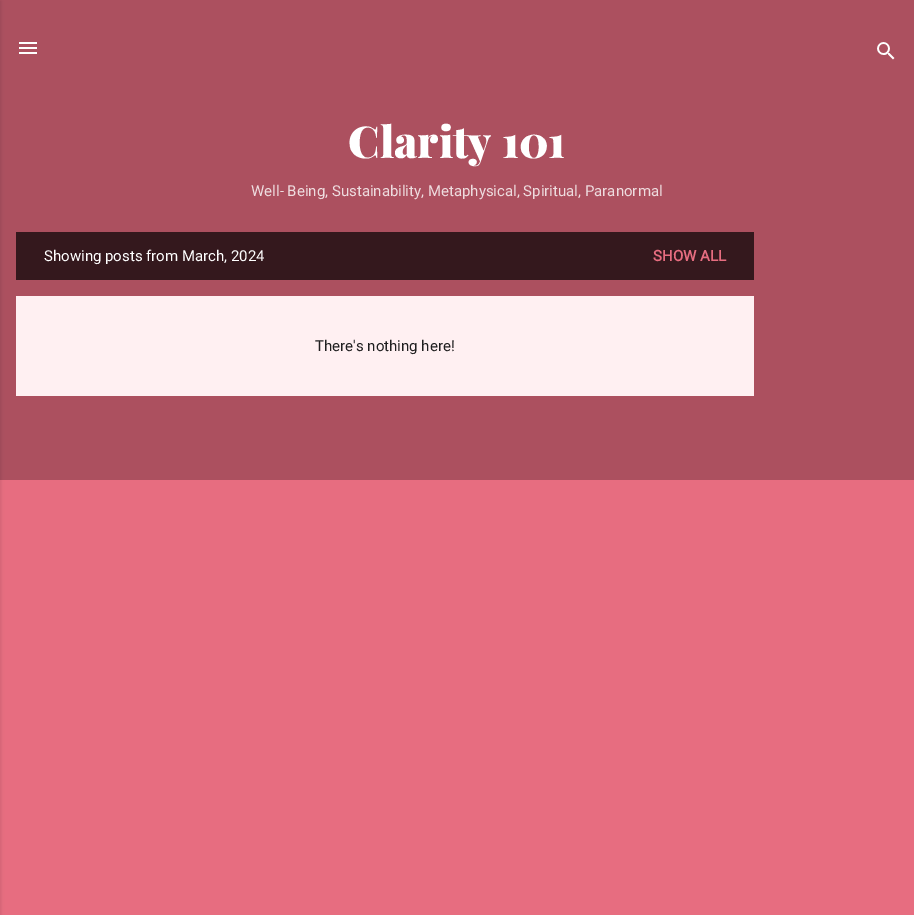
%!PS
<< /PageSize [914 915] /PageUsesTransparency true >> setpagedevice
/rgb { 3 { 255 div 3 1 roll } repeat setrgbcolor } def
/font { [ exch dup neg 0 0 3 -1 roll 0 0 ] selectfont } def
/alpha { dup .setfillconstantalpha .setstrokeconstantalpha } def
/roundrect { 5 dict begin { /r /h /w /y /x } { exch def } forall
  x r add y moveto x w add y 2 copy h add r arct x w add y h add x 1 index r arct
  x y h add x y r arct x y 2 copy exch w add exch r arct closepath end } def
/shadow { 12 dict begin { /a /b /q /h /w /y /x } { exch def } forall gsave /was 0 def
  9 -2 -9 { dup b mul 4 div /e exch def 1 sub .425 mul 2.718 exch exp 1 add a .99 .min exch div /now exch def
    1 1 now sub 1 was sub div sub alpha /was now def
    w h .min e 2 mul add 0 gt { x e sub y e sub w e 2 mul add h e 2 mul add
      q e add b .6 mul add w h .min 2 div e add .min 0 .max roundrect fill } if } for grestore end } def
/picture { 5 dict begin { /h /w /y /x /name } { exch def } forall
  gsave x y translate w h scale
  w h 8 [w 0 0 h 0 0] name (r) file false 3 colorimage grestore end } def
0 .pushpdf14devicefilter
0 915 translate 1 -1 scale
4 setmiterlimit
231 109 128 rgb
0 0 914 915 rectfill
172 80 95 rgb
0 0 914 480 rectfill
0 0 0 rgb
-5 1 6 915 0 1.5 0.1 shadow
(img/1.rgb) 19 42 18 12 picture
(img/2.rgb) 877 42 18 18 picture
52 24 29 rgb
16 232 738 48 rectfill
255 240 242 rgb
16 296 738 100 rectfill
/PlayfairDisplay-Black 44 font
255 255 255 rgb
348 158 moveto (Clarity 101) show
/Roboto-Regular 15 font
238 220 223 rgb
251 196 moveto (Well- Being, Sustainability, Metaphysical, Spiritual, Paranormal) show
255 255 255 rgb
44 261 moveto (Showing posts from March, 2024) show
/Roboto-Bold 15 font
231 109 128 rgb
653 261 moveto (SHOW ALL) show
/Roboto-Regular 15 font
32 31 32 rgb
315 351 moveto (There's nothing here!) show
.poppdf14devicefilter showpage
